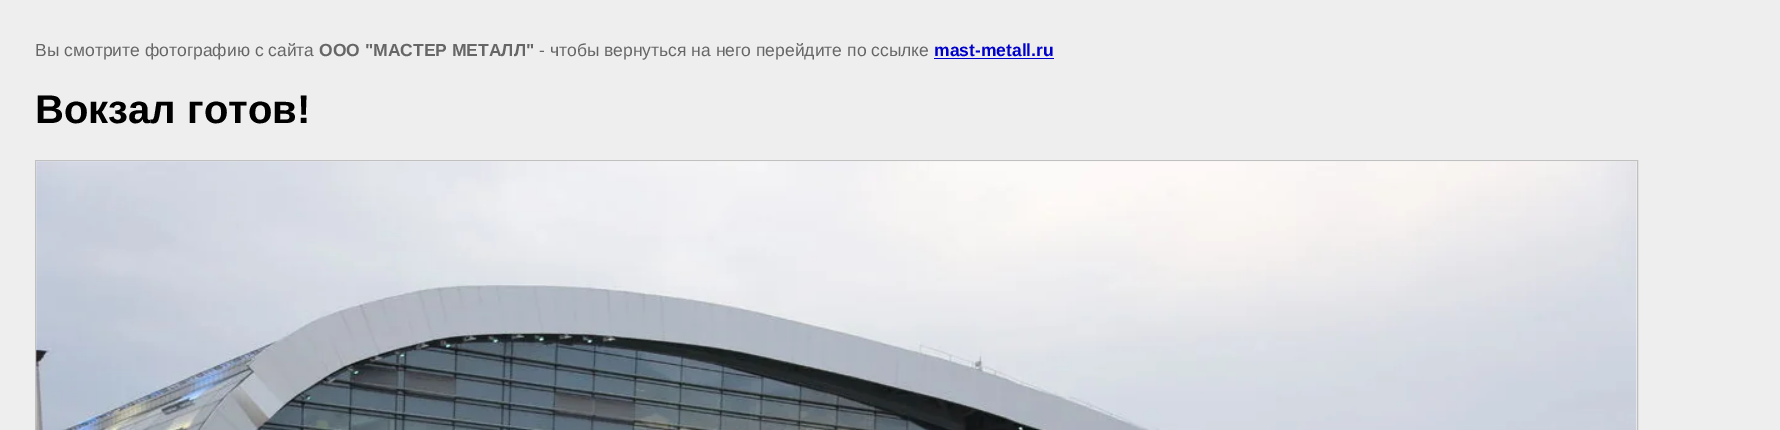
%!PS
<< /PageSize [1780 430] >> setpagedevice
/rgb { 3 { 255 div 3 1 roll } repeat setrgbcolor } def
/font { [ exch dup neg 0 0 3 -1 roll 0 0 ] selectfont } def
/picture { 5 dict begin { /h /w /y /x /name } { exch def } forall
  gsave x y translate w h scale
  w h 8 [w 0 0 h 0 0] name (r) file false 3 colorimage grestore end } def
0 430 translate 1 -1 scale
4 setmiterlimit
238 238 238 rgb
0 0 1780 430 rectfill
0 0 204 rgb
934 58 120 1 rectfill
192 192 192 rgb
35.5 160.5 1602 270 rectstroke
(img/1.rgb) 36 161 1601 269 picture
/LiberationSans-Regular 17.5 font
102 102 102 rgb
35 56 moveto (Вы смотрите фотографию с сайта) show
/LiberationSans-Bold 17.5 font
319 56 moveto (ООО "МАСТЕР МЕТАЛЛ") show
/LiberationSans-Regular 17.5 font
539 56 moveto (- чтобы вернуться на него перейдите по ссылке) show
/LiberationSans-Bold 17.5 font
0 0 204 rgb
934 56 moveto (mast-metall.ru) show
/LiberationSans-Bold 40 font
0 0 0 rgb
35 123 moveto (Вокзал готов!) show
showpage
